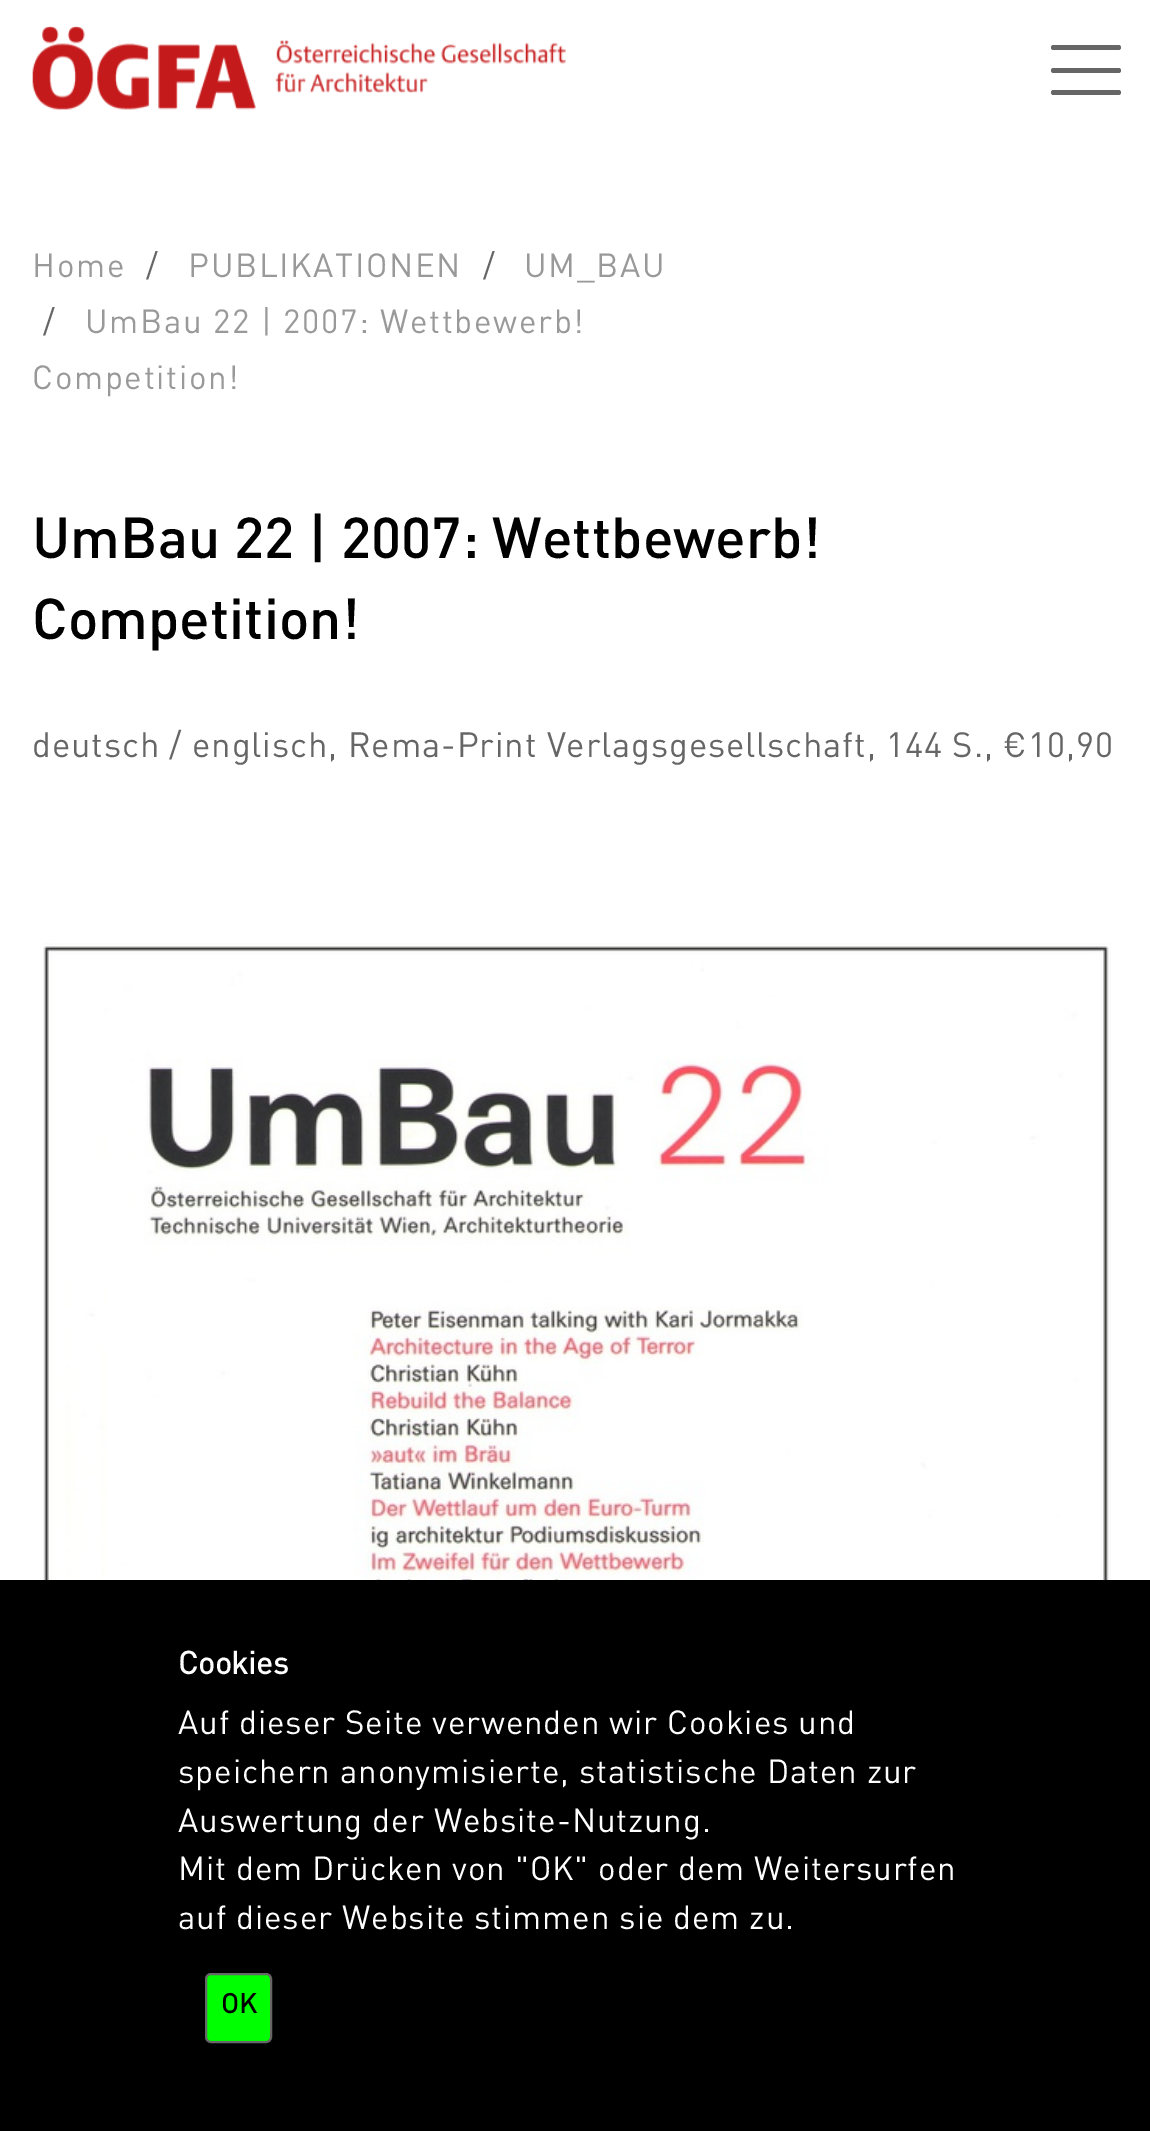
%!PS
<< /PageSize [1150 2131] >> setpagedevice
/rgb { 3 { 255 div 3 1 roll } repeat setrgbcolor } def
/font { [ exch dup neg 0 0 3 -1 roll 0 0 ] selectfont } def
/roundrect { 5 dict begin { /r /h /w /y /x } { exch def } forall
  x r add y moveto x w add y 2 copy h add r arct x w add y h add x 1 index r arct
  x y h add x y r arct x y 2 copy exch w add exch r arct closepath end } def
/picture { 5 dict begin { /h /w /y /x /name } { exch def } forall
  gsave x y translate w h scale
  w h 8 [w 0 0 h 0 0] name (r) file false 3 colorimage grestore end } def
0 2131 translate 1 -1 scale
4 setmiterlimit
255 255 255 rgb
0 0 1150 2131 rectfill
(img/1.rgb) 32 26 534 84 picture
102 102 102 rgb
1051 68 70 5 2.5 roundrect fill
1051 45 70 5 2.5 roundrect fill
1051 90 70 5 2.5 roundrect fill
(img/2.rgb) 43 943 1068 637 picture
0 0 0 rgb
0 1580 1150 551 rectfill
0 255 0 rgb
206 1974 65 68 5 roundrect gsave fill grestore
102 102 102 rgb
2 setlinewidth
stroke
/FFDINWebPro-Regular 33.1 font
153 153 153 rgb
32 277 moveto 1.65 0 (Home) ashow
102 102 102 rgb
146 277 moveto 0.85 0 (/) ashow
153 153 153 rgb
188 277 moveto 1.65 0 (PUBLIKATIONEN) ashow
102 102 102 rgb
483 277 moveto 0.85 0 (/) ashow
153 153 153 rgb
524 277 moveto 1.65 0 (UM_BAU) ashow
102 102 102 rgb
43 333 moveto 0.85 0 (/) ashow
153 153 153 rgb
85 333 moveto 1.65 0 (UmBau 22 | 2007: Wettbewerb!) ashow
32 389 moveto 1.65 0 (Competition!) ashow
/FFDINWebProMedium-Regular 56.75 font
0 0 0 rgb
32 558 moveto (UmBau 22 | 2007: Wettbewerb!) show
32 639 moveto (Competition!) show
/FFDINWebPro-Regular 34.65 font
102 102 102 rgb
32 757 moveto 0.87 0 (deutsch / englisch, Rema-Print Verlagsgesellschaft, 144 S., €10,90) ashow
/FFDINWebPro-Bold 31.5 font
255 255 255 rgb
178 1674 moveto (Cookies) show
/FFDINWebPro-Regular 33.1 font
178 1734 moveto 0.85 0 (Auf dieser Seite verwenden wir Cookies und) ashow
178 1783 moveto 0.85 0 (speichern anonymisierte, statistische Daten zur) ashow
178 1832 moveto 0.85 0 (Auswertung der Website-Nutzung.) ashow
178 1880 moveto 0.85 0 (Mit dem Drücken von "OK" oder dem Weitersurfen) ashow
178 1929 moveto 0.85 0 (auf dieser Website stimmen sie dem zu.) ashow
/FFDINWebPro-Bold 27 font
0 0 0 rgb
221 2013 moveto (OK) show
showpage
